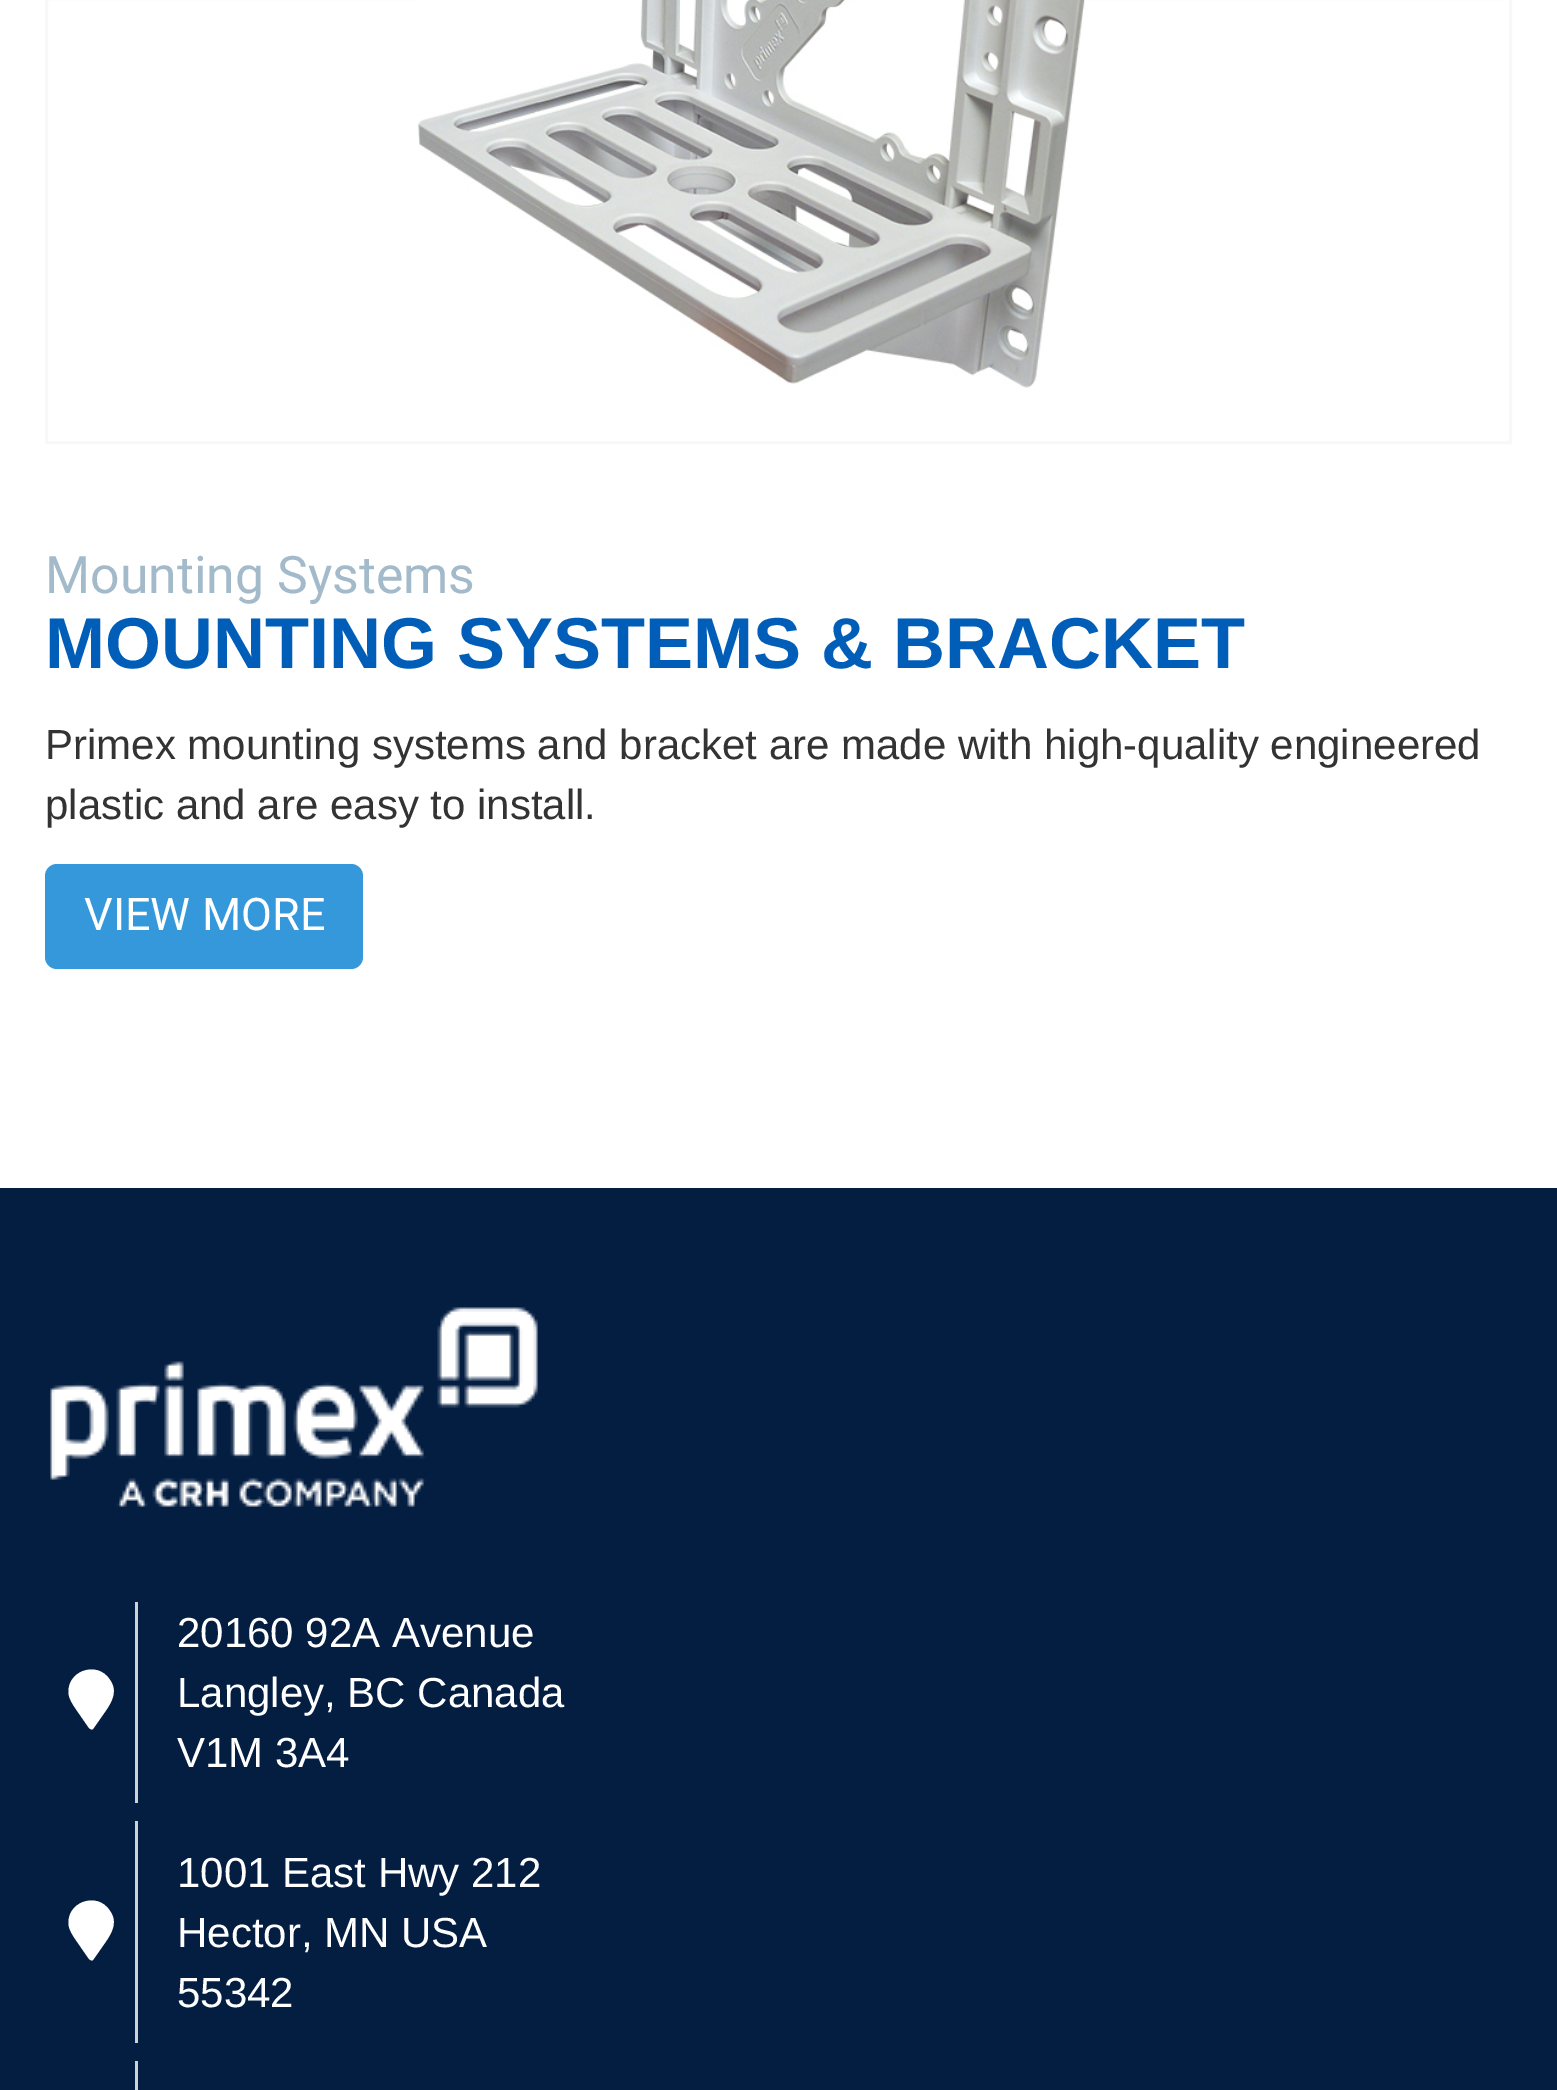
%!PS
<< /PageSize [1557 2090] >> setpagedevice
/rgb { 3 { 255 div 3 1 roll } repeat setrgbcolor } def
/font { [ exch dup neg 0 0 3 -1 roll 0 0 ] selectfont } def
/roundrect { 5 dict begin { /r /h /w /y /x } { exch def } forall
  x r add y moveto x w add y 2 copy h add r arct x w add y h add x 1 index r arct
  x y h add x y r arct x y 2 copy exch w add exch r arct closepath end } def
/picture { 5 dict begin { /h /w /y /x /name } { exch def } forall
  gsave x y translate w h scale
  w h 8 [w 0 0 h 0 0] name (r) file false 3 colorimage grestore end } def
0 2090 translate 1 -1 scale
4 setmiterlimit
255 255 255 rgb
0 0 1557 2090 rectfill
248 248 248 rgb
3 setlinewidth
46.5 -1.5 1464 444 rectstroke
(img/1.rgb) 418 0 667 388 picture
52 152 219 rgb
45 864 318 105 12 roundrect fill
4 30 66 rgb
0 1188 1557 902 rectfill
(img/2.rgb) 50 1307 488 200 picture
205 210 217 rgb
135 1602 3 201 rectfill
255 255 255 rgb
89 1728 moveto 80 1715 lineto 76 1709 71 1703 69 1696 curveto 64 1672 97 1659 110 1680 curveto 120 1694 108 1707 100 1719 curveto 93 1729 lineto 92 1730 90 1729 89 1728 curveto closepath fill
205 210 217 rgb
135 1821 3 222 rectfill
255 255 255 rgb
89 1959 moveto 80 1946 lineto 76 1940 71 1934 69 1927 curveto 64 1903 97 1890 110 1911 curveto 120 1925 108 1938 100 1950 curveto 93 1960 lineto 92 1961 90 1960 89 1959 curveto closepath fill
205 210 217 rgb
135 2061 3 29 rectfill
/Roboto-Regular 51.75 font
163 186 202 rgb
45 593 moveto (Mounting Systems) show
/LiberationSans-Bold 72 font
0 94 184 rgb
45 668 moveto (MOUNTING SYSTEMS & BRACKET) show
/LiberationSans-Regular 42 font
51 51 51 rgb
45 759 moveto (Primex mounting systems and bracket are made with high-quality engineered) show
45 819 moveto (plastic and are easy to install.) show
/Roboto-Regular 45 font
255 255 255 rgb
84 930 moveto (VIEW MORE) show
/LiberationSans-Regular 42 font
[
  [(20160 92A Avenue) 177 1647]
  [(Langley, BC Canada) 177 1707]
  [(V1M 3A4) 177 1767]
  [(1001 East Hwy 212) 177 1887]
  [(Hector, MN USA) 177 1947]
  [(55342) 177 2007]
] { aload pop moveto show } forall
showpage
